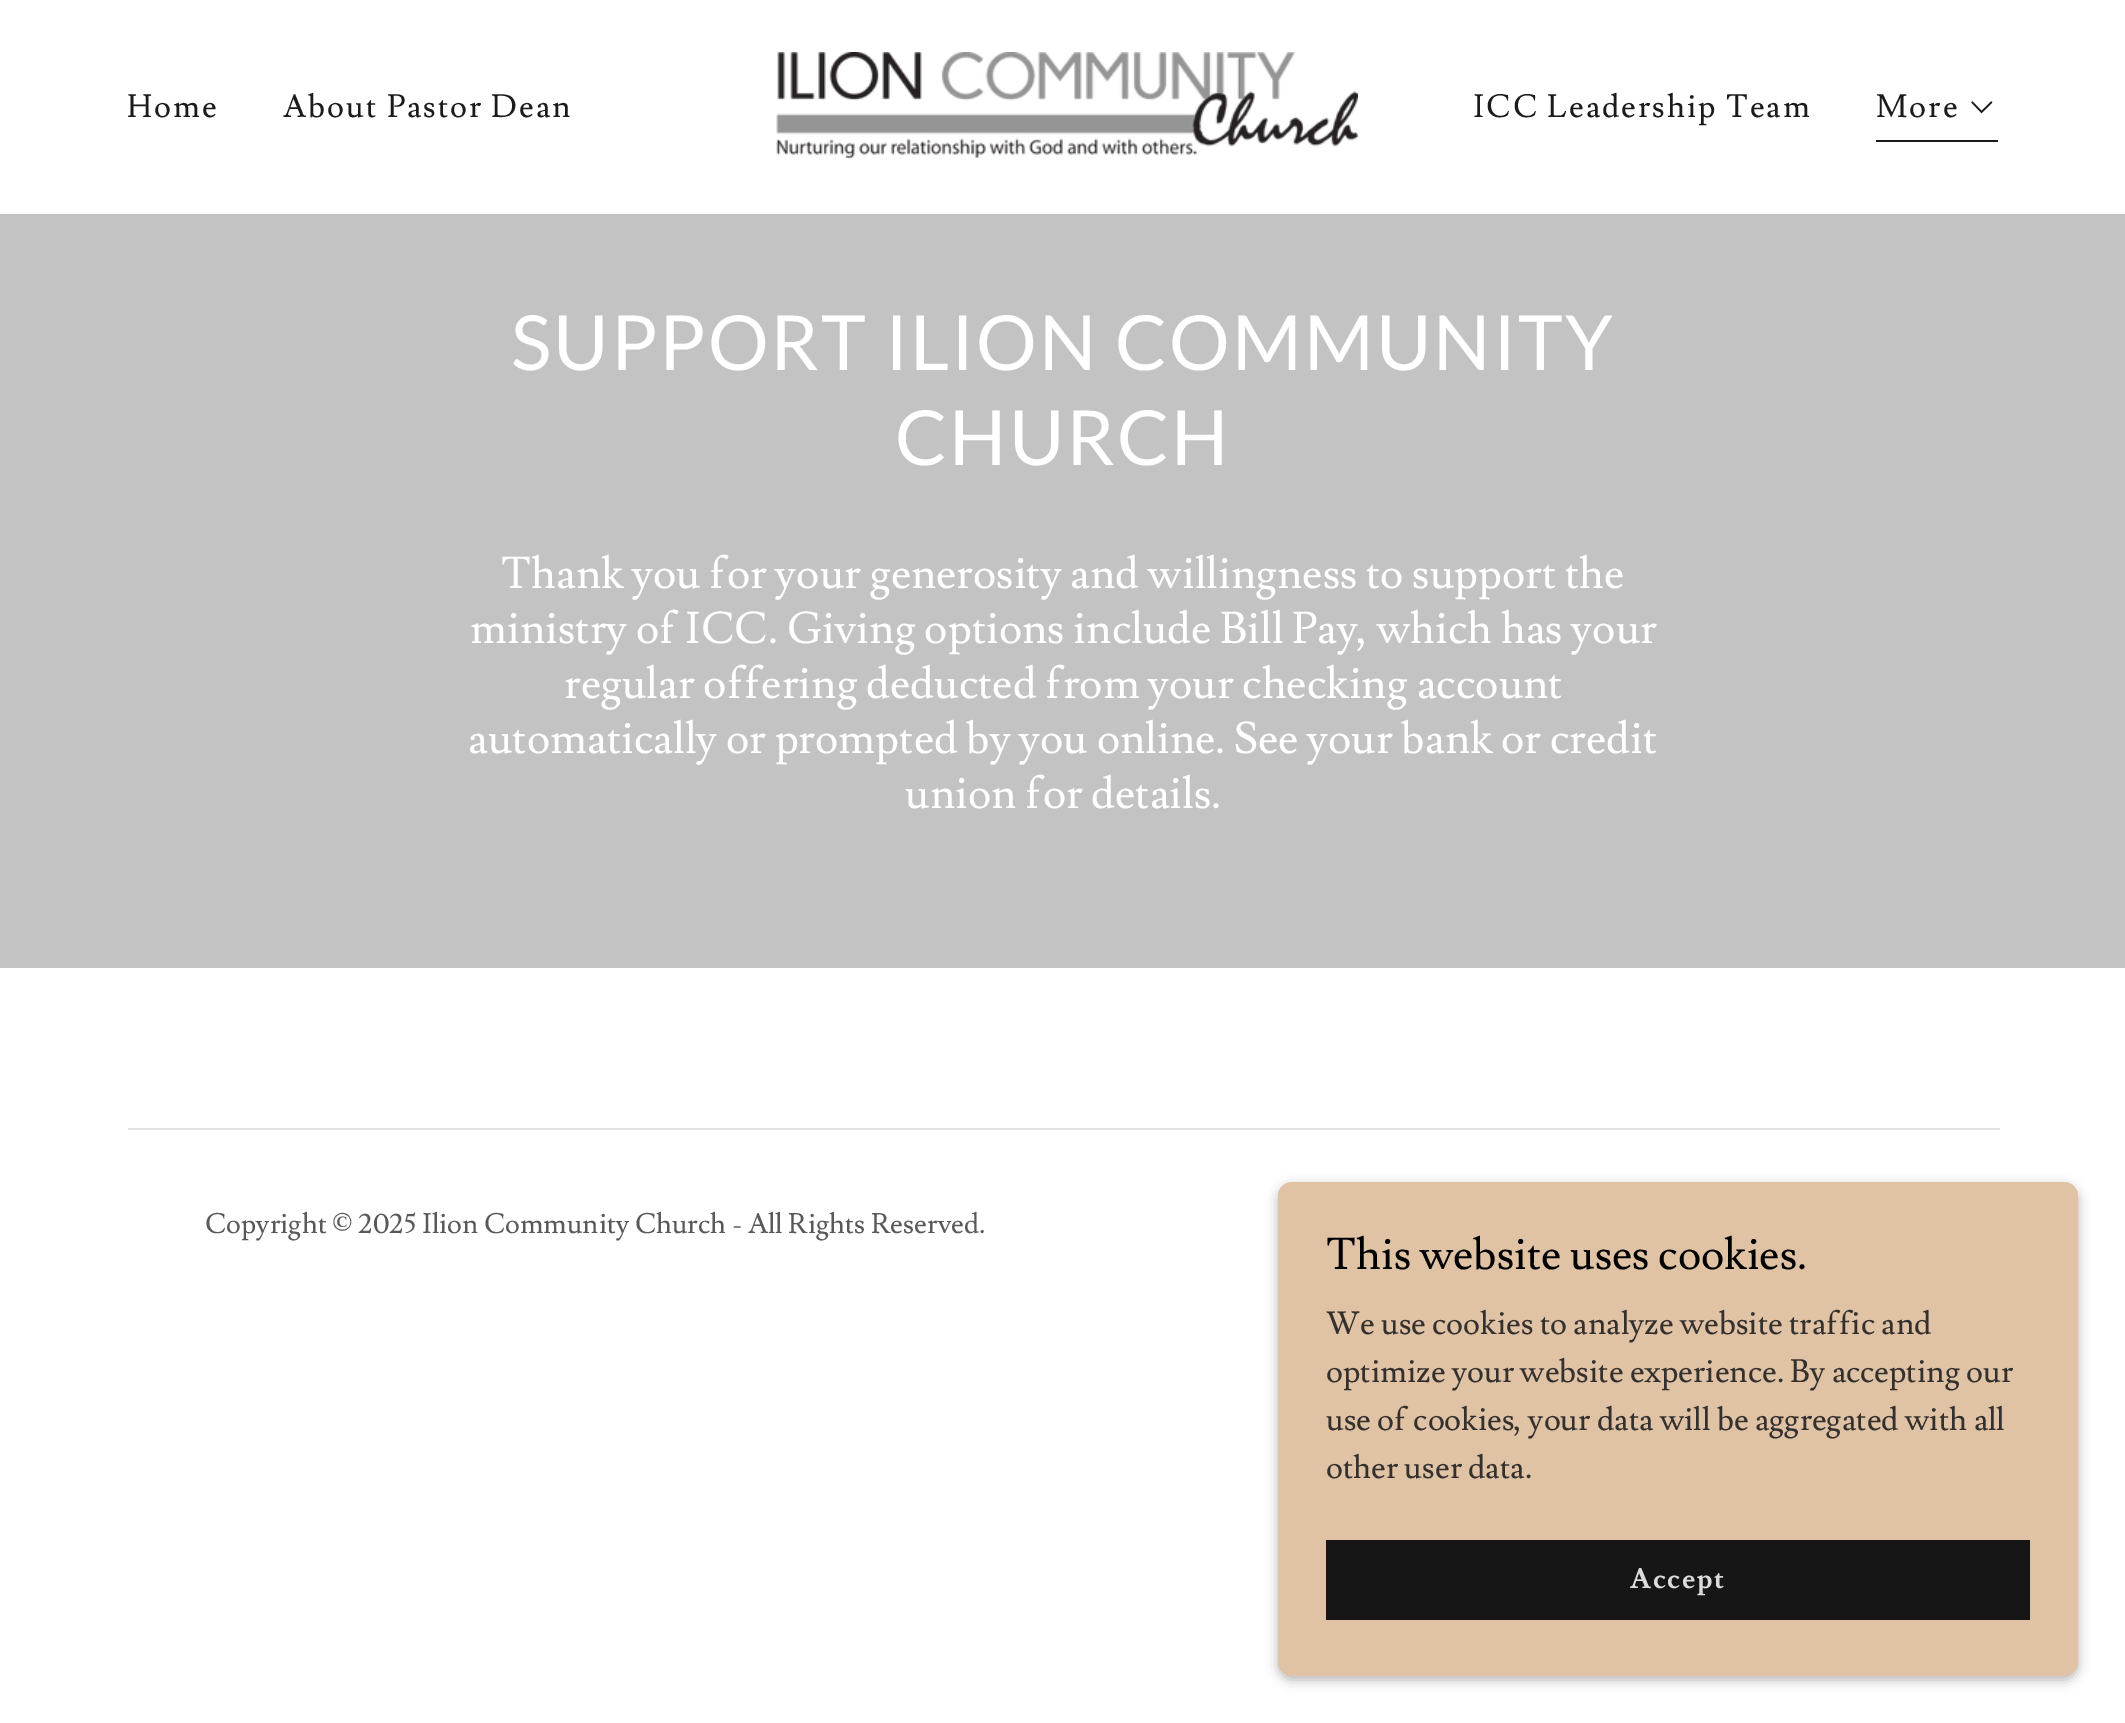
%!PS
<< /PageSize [2125 1723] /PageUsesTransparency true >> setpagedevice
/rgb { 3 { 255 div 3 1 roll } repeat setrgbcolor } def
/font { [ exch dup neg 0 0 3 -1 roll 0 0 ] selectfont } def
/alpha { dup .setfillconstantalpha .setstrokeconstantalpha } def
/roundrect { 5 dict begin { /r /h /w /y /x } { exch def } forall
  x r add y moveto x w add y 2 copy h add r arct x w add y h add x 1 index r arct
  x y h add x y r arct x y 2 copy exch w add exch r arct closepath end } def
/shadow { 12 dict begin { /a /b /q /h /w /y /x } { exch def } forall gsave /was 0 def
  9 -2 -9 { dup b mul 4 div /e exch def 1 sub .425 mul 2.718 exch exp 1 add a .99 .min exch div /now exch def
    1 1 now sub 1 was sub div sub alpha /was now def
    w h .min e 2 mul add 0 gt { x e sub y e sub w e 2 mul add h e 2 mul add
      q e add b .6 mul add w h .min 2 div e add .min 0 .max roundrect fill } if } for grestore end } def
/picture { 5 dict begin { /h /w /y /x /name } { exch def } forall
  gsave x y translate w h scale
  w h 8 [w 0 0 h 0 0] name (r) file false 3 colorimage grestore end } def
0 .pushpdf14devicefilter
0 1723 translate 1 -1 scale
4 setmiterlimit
255 255 255 rgb
0 0 2125 1723 rectfill
(img/1.rgb) 776 52 582 108 picture
27 27 27 rgb
1876 140 122 2 rectfill
(img/2.rgb) 1971 101 22 13 picture
195 195 195 rgb
0 214 2125 754 rectfill
226 226 226 rgb
128 1128 1872 2 rectfill
0 0 0 rgb
1278 1186 800 494 14 6 0.3 shadow
224 194 165 rgb
1278 1182 800 494 14 roundrect fill
22 22 22 rgb
1326 1540 704 80 rectfill
/Lusitana-Regular 32 font
27 27 27 rgb
127 117 moveto 2 0 (Home) ashow
283 117 moveto 2 0 (About Pastor Dean) ashow
1473 117 moveto 2 0 (ICC Leadership Team) ashow
1876 117 moveto 2 0 (More) ashow
/Lato-Regular 76 font
255 255 255 rgb
511 370 moveto 2 0 (SUPPORT ILION COMMUNITY) ashow
895 465 moveto 2 0 (CHURCH) ashow
/Lusitana-Regular 44 font
[
  [(Thank you for your generosity and willingness to support the) 501 588]
  [(ministry of ICC. Giving options include Bill Pay, which has your) 470 643]
  [(regular offering deducted from your checking account) 564 698]
  [(automatically or prompted by you online. See your bank or credit) 468 753]
  [(union for details.) 905 808]
] { aload pop moveto show } forall
/Lusitana-Regular 28 font
89 89 89 rgb
205 1233 moveto (Copyright © 2025 Ilion Community Church - All Rights Reserved.) show
/Lusitana-Regular 44 font
0 0 0 rgb
1326 1269 moveto (This website uses cookies.) show
/Lusitana-Regular 32 font
51 48 46 rgb
[
  [(We use cookies to analyze website traffic and) 1326 1334]
  [(optimize your website experience. By accepting our) 1326 1382]
  [(use of cookies, your data will be aggregated with all) 1326 1430]
  [(other user data.) 1326 1478]
] { aload pop moveto show } forall
/Lusitana-Bold 28 font
219 219 219 rgb
1630 1588 moveto 1.75 0 (Accept) ashow
.poppdf14devicefilter showpage
